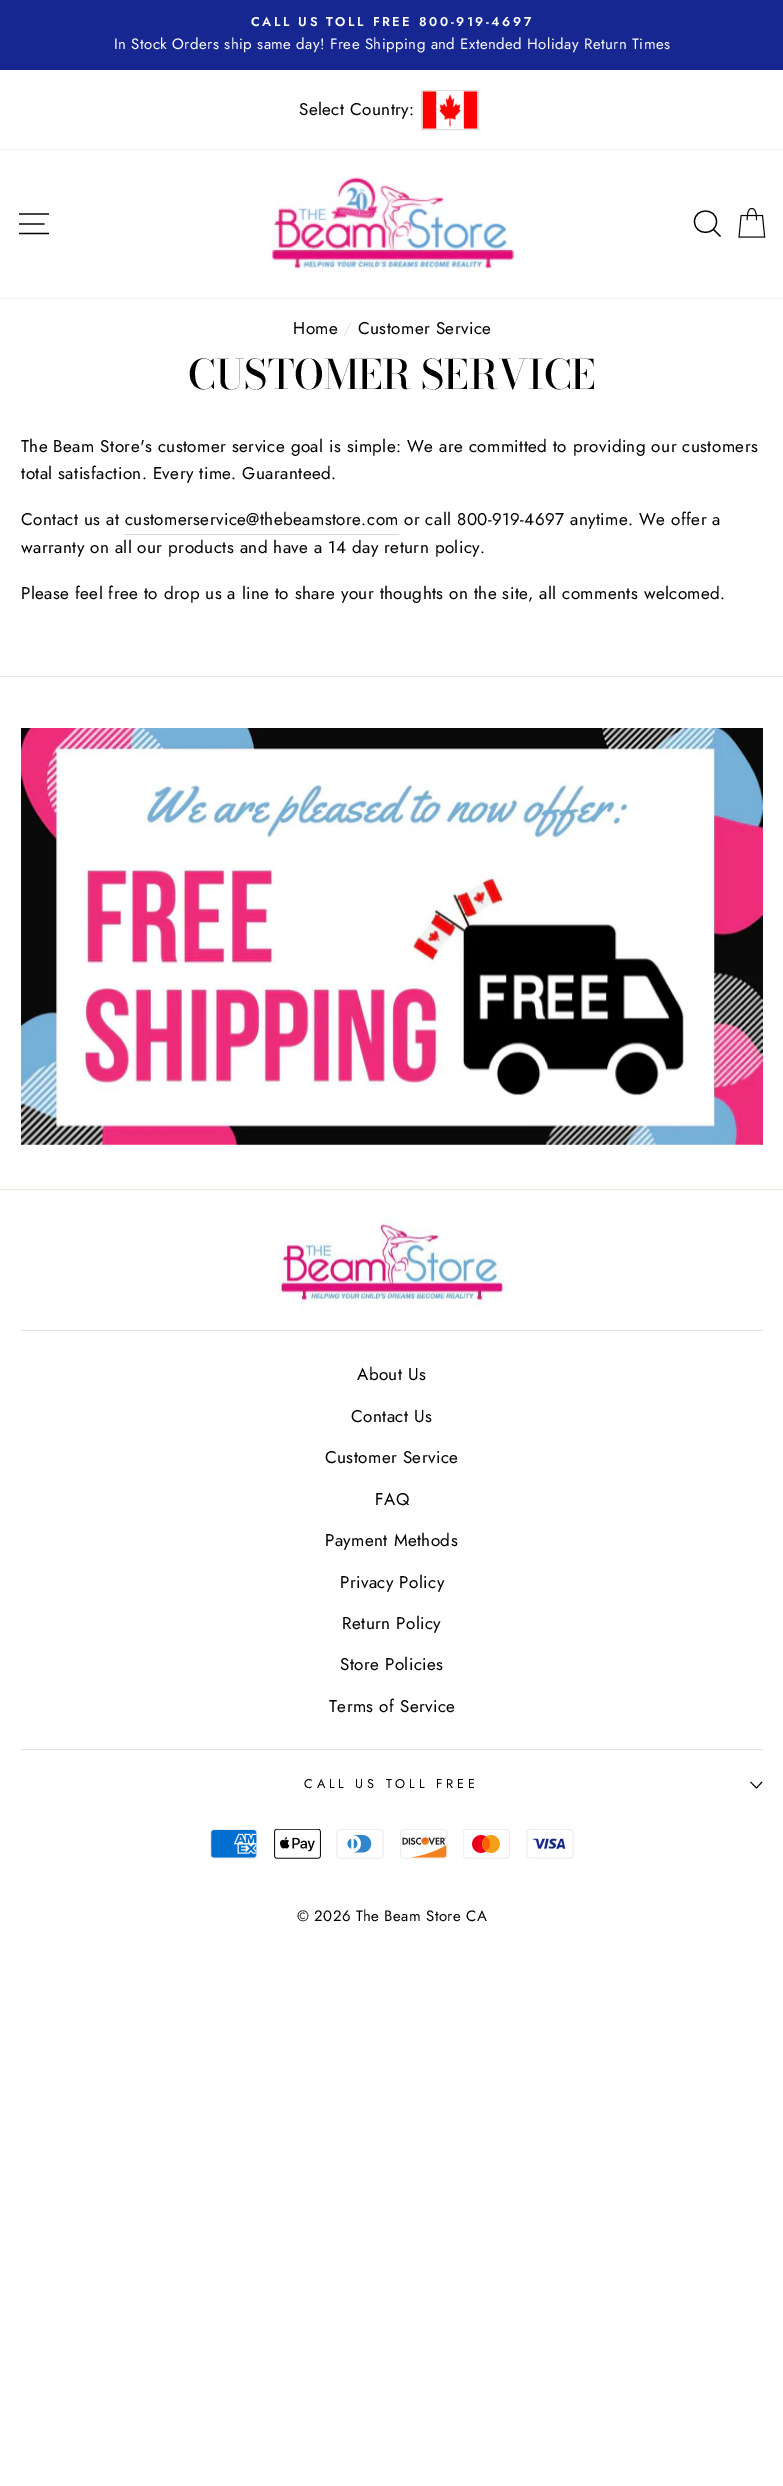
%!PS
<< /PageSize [783 2486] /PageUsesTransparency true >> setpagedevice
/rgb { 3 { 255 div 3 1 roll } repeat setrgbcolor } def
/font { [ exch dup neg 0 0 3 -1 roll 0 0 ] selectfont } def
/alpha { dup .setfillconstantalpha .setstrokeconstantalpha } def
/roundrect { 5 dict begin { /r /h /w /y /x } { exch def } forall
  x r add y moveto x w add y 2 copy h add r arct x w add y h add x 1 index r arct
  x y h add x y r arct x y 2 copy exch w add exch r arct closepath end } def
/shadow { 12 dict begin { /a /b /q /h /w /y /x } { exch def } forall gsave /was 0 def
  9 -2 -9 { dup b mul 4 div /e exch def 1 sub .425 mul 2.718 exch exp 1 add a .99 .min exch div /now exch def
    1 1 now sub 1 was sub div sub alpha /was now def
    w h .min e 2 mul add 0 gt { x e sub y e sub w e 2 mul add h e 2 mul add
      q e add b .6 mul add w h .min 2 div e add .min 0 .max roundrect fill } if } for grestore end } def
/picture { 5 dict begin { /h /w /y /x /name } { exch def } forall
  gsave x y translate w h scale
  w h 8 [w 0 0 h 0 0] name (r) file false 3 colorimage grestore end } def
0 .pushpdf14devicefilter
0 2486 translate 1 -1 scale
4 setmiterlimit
255 255 255 rgb
0 0 783 2486 rectfill
22 39 146 rgb
0 0 783 70 rectfill
221 221 221 rgb
421.5 90.5 57 39 rectstroke
(img/1.rgb) 422 91 56 38 picture
0 0 0 rgb
0 150 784 148 0 0.5 0.2 shadow
255 255 255 rgb
0 150 783 148 rectfill
0 0 0 rgb
1.2 setlinewidth
19 214 moveto 49 214 lineto 19 224 moveto 44.5 224 lineto 19 233.5 moveto 49 233.5 lineto stroke
(img/2.rgb) 268 174 250 98 picture
716.5 221.5 moveto 716.5 236 694.5 236 694.5 221.5 curveto 694.5 207.5 716.5 207.5 716.5 221.5 curveto closepath 720.5 236.5 moveto 713.5 229.5 lineto stroke
(img/3.rgb) 738 207 28 31 picture
217 217 217 rgb
125 534 274 1 rectfill
232 232 225 rgb
0 676 783 1 rectfill
(img/4.rgb) 21 728 742 417 picture
0 1189 783 1 rectfill
(img/5.rgb) 277 1217 231 93 picture
224 224 224 rgb
21 1330 742 1 rectfill
21 1749 742 1 rectfill
0 0 0 rgb
0.9 setlinewidth
750.5 1782 moveto 756.5 1788 lineto 762 1782 lineto stroke
(img/6.rgb) 210 1829 48 30 picture
(img/7.rgb) 274 1829 47 30 picture
(img/8.rgb) 336 1829 48 30 picture
(img/9.rgb) 400 1829 48 30 picture
(img/10.rgb) 463 1829 47 30 picture
(img/11.rgb) 526 1829 48 30 picture
/Jost-SemiBold 12.75 font
255 255 255 rgb
251 26 moveto 2.55 0 (CALL US TOLL FREE 800-919-4697) ashow
/Jost-Regular 15 font
114 49 moveto 0.43 0 (In Stock Orders ship same day! Free Shipping and Extended Holiday Return Times) ashow
/Jost-Regular 17 font
0 0 0 rgb
299 115 moveto 0.43 0 (Select Country:) ashow
293 334 moveto 0.43 0 (Home) ashow
232 232 225 rgb
343 334 moveto 0.43 0 (/) ashow
0 0 0 rgb
358 334 moveto 0.43 0 (Customer Service) ashow
/BodoniModa-Medium 40.4 font
188 389 moveto (CUSTOMER SERVICE) show
/Jost-Regular 17 font
21 452 moveto 0.43 0 (The Beam Store's customer service goal is simple: We are committed to providing our customers) ashow
21 479 moveto 0.43 0 (total satisfaction. Every time. Guaranteed.) ashow
21 525 moveto 0.43 0 (Contact us at customerservice@thebeamstore.com) ashow
404 525 moveto 0.43 0 (or call 800-919-4697 anytime. We offer a) ashow
21 553 moveto 0.43 0 (warranty on all our products and have a 14 day return policy.) ashow
21 599 moveto 0.43 0 (Please feel free to drop us a line to share your thoughts on the site, all comments welcomed.) ashow
357 1380 moveto 0.43 0 (About Us) ashow
351 1422 moveto 0.43 0 (Contact Us) ashow
325 1463 moveto 0.43 0 (Customer Service) ashow
375 1505 moveto 0.43 0 (FAQ) ashow
325 1546 moveto 0.43 0 (Payment Methods) ashow
340 1588 moveto 0.43 0 (Privacy Policy) ashow
342 1629 moveto 0.43 0 (Return Policy) ashow
340 1670 moveto 0.43 0 (Store Policies) ashow
329 1712 moveto 0.43 0 (Terms of Service) ashow
/Jost-Regular 12.75 font
304 1788 moveto 3.8 0 (CALL US TOLL FREE) ashow
/Jost-Regular 15 font
297 1921 moveto 0.43 0 (© 2026 The Beam Store CA) ashow
.poppdf14devicefilter showpage
